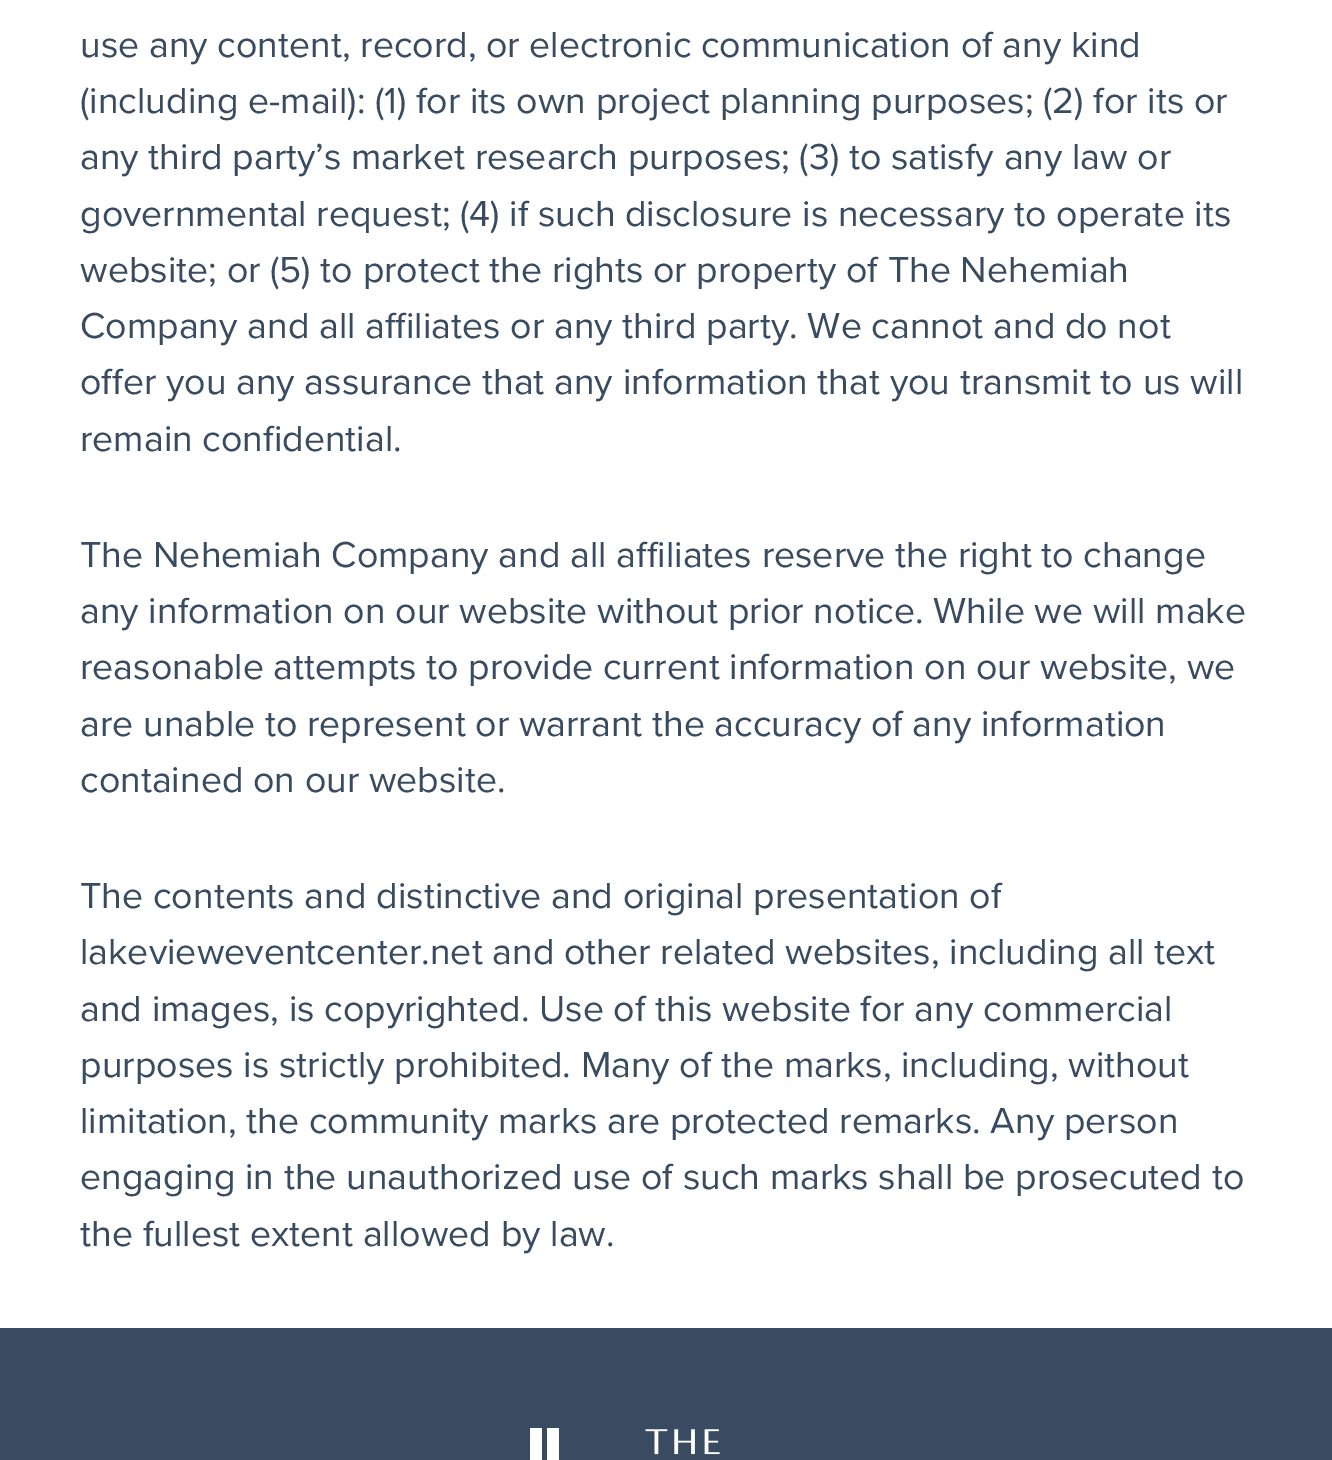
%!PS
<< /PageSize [1332 1460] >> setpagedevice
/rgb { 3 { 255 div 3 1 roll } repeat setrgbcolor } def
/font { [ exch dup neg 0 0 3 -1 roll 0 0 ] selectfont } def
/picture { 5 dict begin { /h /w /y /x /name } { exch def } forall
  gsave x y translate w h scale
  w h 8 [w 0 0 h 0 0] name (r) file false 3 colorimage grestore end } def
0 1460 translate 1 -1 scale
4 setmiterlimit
255 255 255 rgb
0 0 1332 1460 rectfill
56 75 96 rgb
0 1328 1332 132 rectfill
(img/1.rgb) 530 1428 190 32 picture
/ProximaNova-Regular 37.5 font
[
  [(use any content, record, or electronic communication of any kind) 80 57]
  [(\(including e-mail\): \(1\) for its own project planning purposes; \(2\) for its or) 80 113]
  [(any third party’s market research purposes; \(3\) to satisfy any law or) 80 169]
  [(governmental request; \(4\) if such disclosure is necessary to operate its) 80 226]
  [(website; or \(5\) to protect the rights or property of The Nehemiah) 80 282]
  [(Company and all affiliates or any third party. We cannot and do not) 80 338]
  [(offer you any assurance that any information that you transmit to us will) 80 394]
  [(remain confidential.) 80 451]
  [(The Nehemiah Company and all affiliates reserve the right to change) 80 567]
  [(any information on our website without prior notice. While we will make) 80 623]
  [(reasonable attempts to provide current information on our website, we) 80 679]
  [(are unable to represent or warrant the accuracy of any information) 80 736]
  [(contained on our website.) 80 792]
  [(The contents and distinctive and original presentation of) 80 908]
  [(lakevieweventcenter.net and other related websites, including all text) 80 964]
  [(and images, is copyrighted. Use of this website for any commercial) 80 1021]
  [(purposes is strictly prohibited. Many of the marks, including, without) 80 1077]
  [(limitation, the community marks are protected remarks. Any person) 80 1133]
  [(engaging in the unauthorized use of such marks shall be prosecuted to) 80 1189]
  [(the fullest extent allowed by law.) 80 1246]
] { aload pop moveto show } forall
showpage
